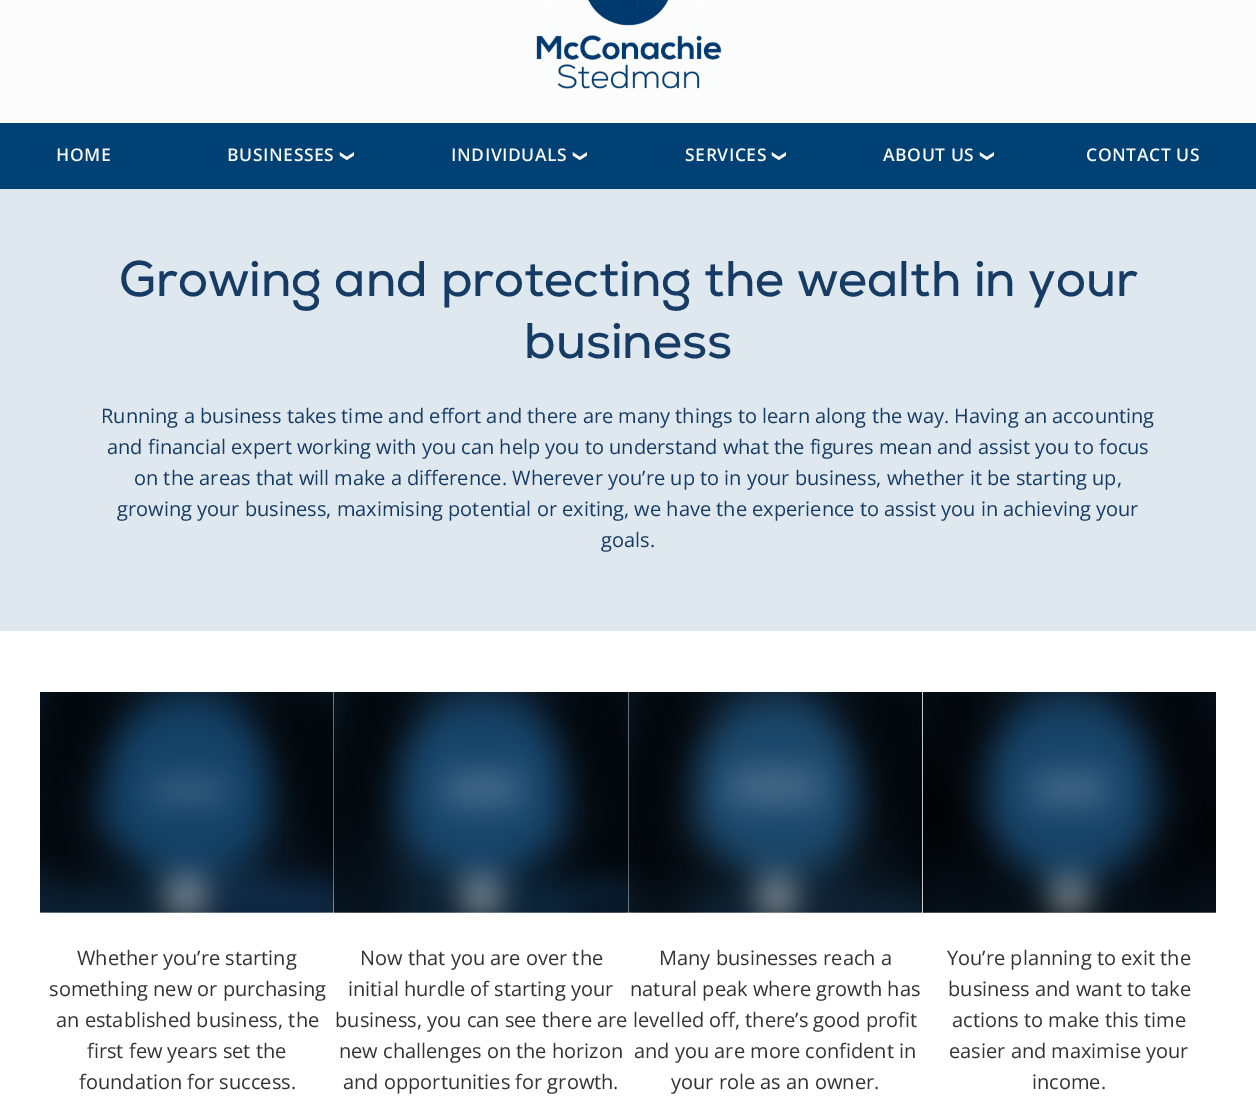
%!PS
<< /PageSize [1256 1114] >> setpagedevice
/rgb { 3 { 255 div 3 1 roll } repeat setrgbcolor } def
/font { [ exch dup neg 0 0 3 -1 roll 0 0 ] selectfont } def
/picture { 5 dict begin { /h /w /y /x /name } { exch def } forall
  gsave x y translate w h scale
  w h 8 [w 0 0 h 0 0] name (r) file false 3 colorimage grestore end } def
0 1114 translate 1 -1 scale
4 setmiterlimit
255 255 255 rgb
0 0 1256 1114 rectfill
252 252 252 rgb
0 0 1256 123 rectfill
(img/1.rgb) 536 0 186 89 picture
0 65 117 rgb
0 123 1256 66 rectfill
223 232 238 rgb
0 189 1256 442 rectfill
(img/2.rgb) 40 692 294 221 picture
(img/3.rgb) 334 692 295 221 picture
(img/4.rgb) 629 692 294 221 picture
(img/5.rgb) 923 692 293 221 picture
/OpenSans-SemiBold 17.5 font
250 250 250 rgb
56 161 moveto 0.6 0 (HOME) ashow
227 161 moveto 0.6 0 (BUSINESSES) ashow
/DejaVuSans-Bold 14 font
gsave 343 150 translate 90 rotate 0 0 moveto 0.6 0 (❯) ashow grestore
/OpenSans-SemiBold 17.5 font
451 161 moveto 0.6 0 (INDIVIDUALS) ashow
/DejaVuSans-Bold 14 font
gsave 576 150 translate 90 rotate 0 0 moveto 0.6 0 (❯) ashow grestore
/OpenSans-SemiBold 17.5 font
685 161 moveto 0.6 0 (SERVICES) ashow
/DejaVuSans-Bold 14 font
gsave 775 150 translate 90 rotate 0 0 moveto 0.6 0 (❯) ashow grestore
/OpenSans-SemiBold 17.5 font
883 161 moveto 0.6 0 (ABOUT US) ashow
/DejaVuSans-Bold 14 font
gsave 983 150 translate 90 rotate 0 0 moveto 0.6 0 (❯) ashow grestore
/OpenSans-SemiBold 17.5 font
1086 161 moveto 0.6 0 (CONTACT US) ashow
/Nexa-Regular 50 font
22 60 102 rgb
119 296 moveto (Growing and protecting the wealth in your) show
524 358 moveto (business) show
/OpenSans-Regular 20 font
[
  [(Running a business takes time and effort and there are many things to learn along the way. Having an accounting) 101 423]
  [(and financial expert working with you can help you to understand what the figures mean and assist you to focus) 107 454]
  [(on the areas that will make a difference. Wherever you’re up to in your business, whether it be starting up,) 134 485]
  [(growing your business, maximising potential or exiting, we have the experience to assist you in achieving your) 117 516]
  [(goals.) 601 547]
] { aload pop moveto show } forall
51 51 51 rgb
[
  [(Whether you’re starting) 77 965]
  [(something new or purchasing) 49 996]
  [(an established business, the) 56 1027]
  [(first few years set the) 87 1058]
  [(foundation for success.) 79 1089]
  [(Now that you are over the) 360 965]
  [(initial hurdle of starting your) 348 996]
  [(business, you can see there are) 335 1027]
  [(new challenges on the horizon) 339 1058]
  [(and opportunities for growth.) 343 1089]
  [(Many businesses reach a) 659 965]
  [(natural peak where growth has) 630 996]
  [(levelled off, there’s good profit) 633 1027]
  [(and you are more confident in) 634 1058]
  [(your role as an owner.) 671 1089]
  [(You’re planning to exit the) 947 965]
  [(business and want to take) 948 996]
  [(actions to make this time) 952 1027]
  [(easier and maximise your) 949 1058]
  [(income.) 1032 1089]
] { aload pop moveto show } forall
showpage
